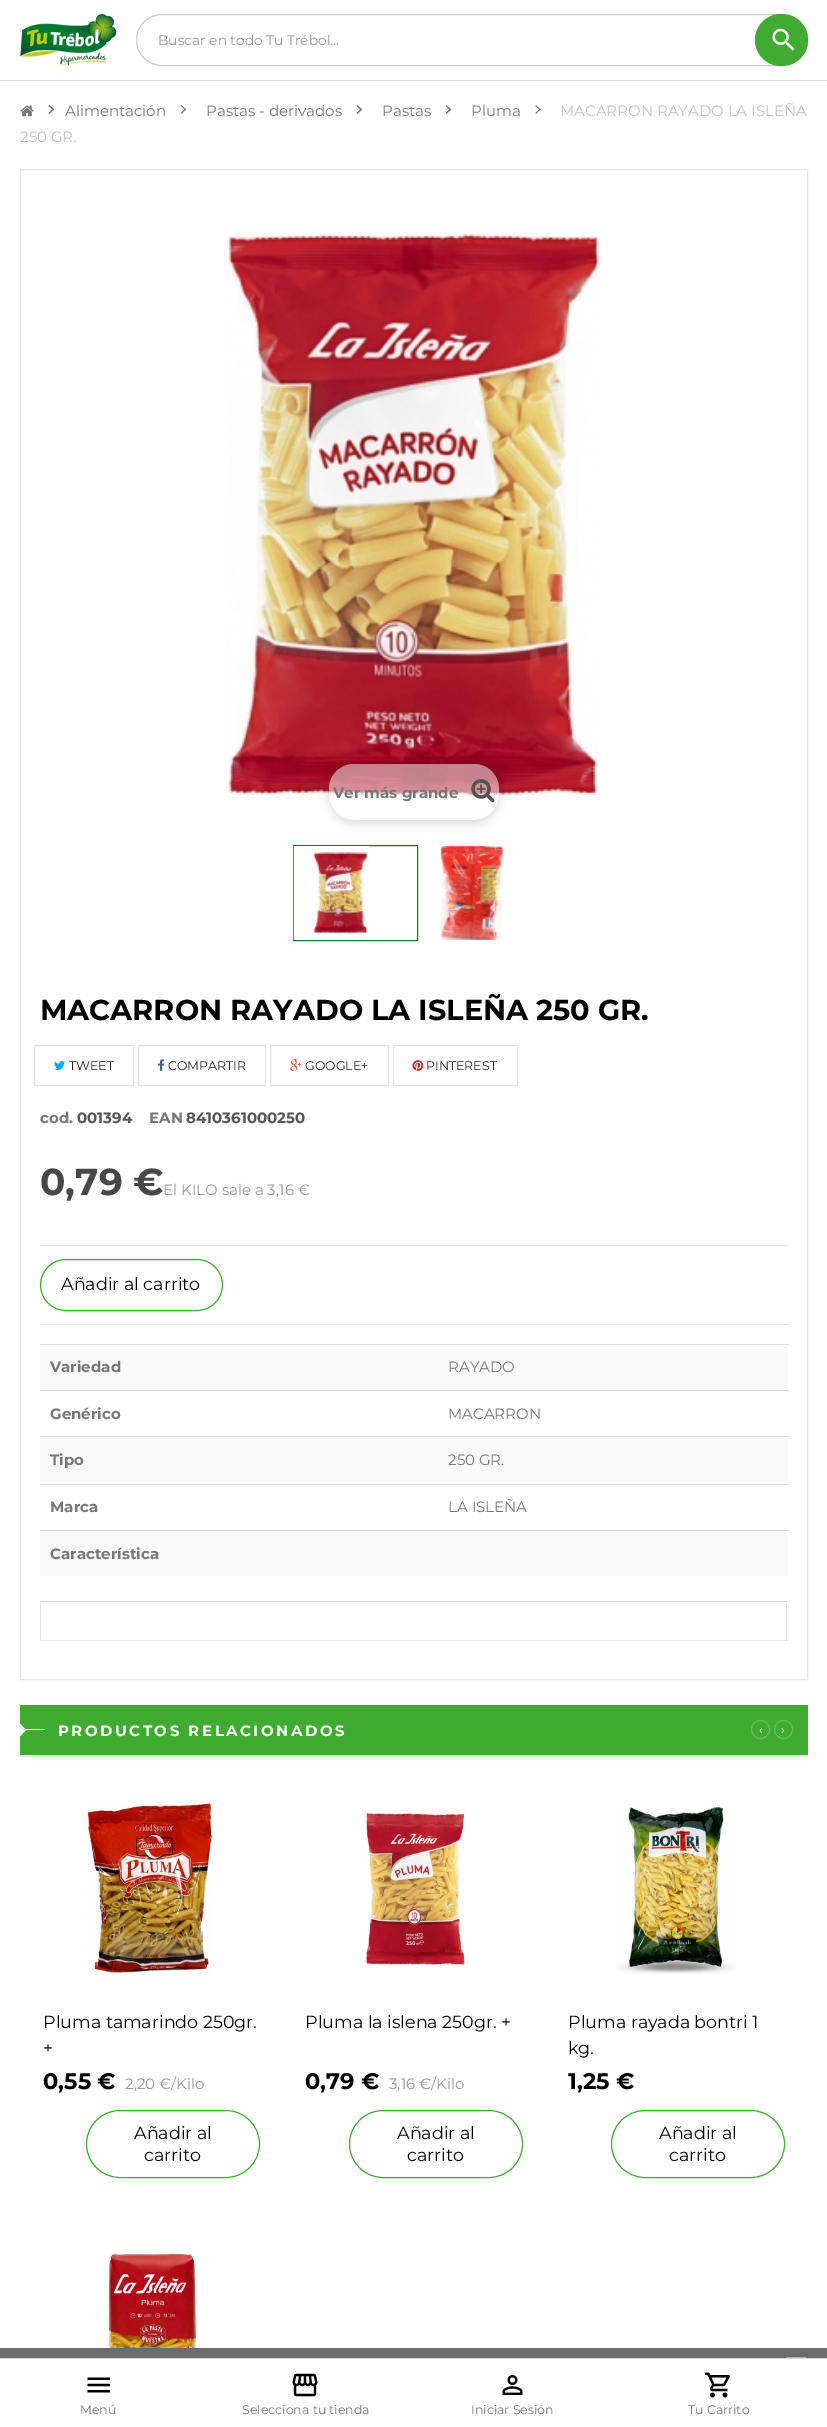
%!PS
<< /PageSize [827 2427] /PageUsesTransparency true >> setpagedevice
/rgb { 3 { 255 div 3 1 roll } repeat setrgbcolor } def
/font { [ exch dup neg 0 0 3 -1 roll 0 0 ] selectfont } def
/alpha { dup .setfillconstantalpha .setstrokeconstantalpha } def
/circle { newpath 0 360 arc closepath } def
/roundrect { 5 dict begin { /r /h /w /y /x } { exch def } forall
  x r add y moveto x w add y 2 copy h add r arct x w add y h add x 1 index r arct
  x y h add x y r arct x y 2 copy exch w add exch r arct closepath end } def
/shadow { 12 dict begin { /a /b /q /h /w /y /x } { exch def } forall gsave /was 0 def
  9 -2 -9 { dup b mul 4 div /e exch def 1 sub .425 mul 2.718 exch exp 1 add a .99 .min exch div /now exch def
    1 1 now sub 1 was sub div sub alpha /was now def
    w h .min e 2 mul add 0 gt { x e sub y e sub w e 2 mul add h e 2 mul add
      q e add b .6 mul add w h .min 2 div e add .min 0 .max roundrect fill } if } for grestore end } def
/picture { 5 dict begin { /h /w /y /x /name } { exch def } forall
  gsave x y translate w h scale
  w h 8 [w 0 0 h 0 0] name (r) file false 3 colorimage grestore end } def
0 .pushpdf14devicefilter
0 2427 translate 1 -1 scale
4 setmiterlimit
255 255 255 rgb
0 0 827 2427 rectfill
216 216 216 rgb
0 80 827 1 rectfill
(img/1.rgb) 20 13 97 54 picture
204 204 204 rgb
136.5 14.5 671 51 25.5 roundrect stroke
63 172 49 rgb
755 14 53 52 26 roundrect fill
(img/2.rgb) 772 28 23 23 picture
216 216 216 rgb
0 2358 827 1 rectfill
(img/3.rgb) 87 2377 23 16 picture
(img/4.rgb) 292 2373 26 24 picture
(img/5.rgb) 502 2375 21 20 picture
(img/6.rgb) 705 2372 25 26 picture
(img/7.rgb) 20 105 14 12 picture
119 119 119 rgb
49.5 105 moveto 54 109.5 lineto 53 110.5 lineto 48.5 106 lineto closepath fill
53 108.5 moveto 54 109.5 lineto 49.5 114 lineto 48.5 113 lineto closepath fill
181.5 105 moveto 186 109.5 lineto 185.5 110.5 lineto 181 106 lineto closepath fill
185.5 108.5 moveto 186 109.5 lineto 181.5 114 lineto 181 113 lineto closepath fill
357.5 105 moveto 362 109.5 lineto 361 110.5 lineto 356.5 106 lineto closepath fill
361 108.5 moveto 362 109.5 lineto 357.5 114 lineto 356.5 113 lineto closepath fill
446.5 105 moveto 451 109.5 lineto 450 110.5 lineto 446 106 lineto closepath fill
450 108.5 moveto 451 109.5 lineto 446.5 114 lineto 446 113 lineto closepath fill
536 105 moveto 540.5 109.5 lineto 540 110.5 lineto 535.5 106 lineto closepath fill
540 108.5 moveto 540.5 109.5 lineto 536 114 lineto 535.5 113 lineto closepath fill
229 229 229 rgb
20.5 169.5 787 1510 rectstroke
(img/8.rgb) 223 230 378 570 picture
gsave
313 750 moveto 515 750 lineto 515 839 lineto 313 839 lineto closepath 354 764 moveto 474 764 lineto 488 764 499 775 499 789 curveto 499 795 lineto 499 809 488 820 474 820 curveto 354 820 lineto 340 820 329 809 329 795 curveto 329 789 lineto 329 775 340 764 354 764 curveto closepath eoclip newpath
0 0 0 rgb
329 766 170 57 25 5 0.16 shadow
grestore
0.5 alpha
255 255 255 rgb
329 764 170 56 25 roundrect fill
1 alpha
(img/9.rgb) 471 779 24 24 picture
0 126 52 rgb
293.5 845.5 124 95 rectstroke
(img/10.rgb) 293 846 76 94 picture
(img/11.rgb) 439 846 65 94 picture
229 229 229 rgb
34.5 1045.5 99 40 rectstroke
(img/12.rgb) 54 1061 11 9 picture
138.5 1045.5 127 40 rectstroke
(img/13.rgb) 158 1059 7 12 picture
270.5 1045.5 118 40 rectstroke
(img/14.rgb) 290 1059 12 12 picture
393.5 1045.5 124 40 rectstroke
(img/15.rgb) 412 1060 12 11 picture
40 1245 748 1 rectfill
40 1324 748 1 rectfill
63 172 49 rgb
40.5 1259.5 182 51 25.5 roundrect stroke
[
  [40 1345 748 45 249 249 249]
  [40 1344 749 1 221 221 221]
  [40 1390 749 1 221 221 221]
  [40 1438 748 46 249 249 249]
  [40 1436 749 1 221 221 221]
  [40 1484 749 1 221 221 221]
  [40 1530 749 1 221 221 221]
  [40 1531 748 45 249 249 249]
  [40 1601 748 1 221 221 221]
  [786 1603 1 38 229 229 229]
  [40 1640 748 1 229 229 229]
  [40 1603 1 38 229 229 229]
  [20 1705 788 50 63 172 49]
] { aload pop rgb rectfill } forall
245 245 245 rgb
19 1737.5 moveto 19 1722.5 lineto 26 1730 lineto closepath fill
20 1729 25 1 rectfill
229 229 229 rgb
20 1755 788 2 rectfill
101 189 90 rgb
760.5 1729.5 9 circle stroke
783.5 1729.5 9 circle stroke
(img/16.rgb) 85 1800 128 176 picture
63 172 49 rgb
86.5 2110.5 173 67 33.5 roundrect stroke
(img/17.rgb) 365 1812 101 154 picture
349.5 2110.5 173 67 33.5 roundrect stroke
(img/18.rgb) 616 1806 120 168 picture
611.5 2110.5 173 67 33.5 roundrect stroke
(img/19.rgb) 107 2253 90 95 picture
108 108 108 rgb
0 2348 827 10 rectfill
(img/20.rgb) 786 2357 21 1 picture
/Montserrat-Regular 13.75 font
151 151 151 rgb
158 45 moveto (Buscar en todo Tu Trébol...) show
/Montserrat-Regular 12.5 font
119 119 119 rgb
80 2414 moveto (Menú) show
gsave
224 2405 162 13 rectclip
242 2414 moveto (Selecciona tu tienda) show
grestore
gsave
414 2405 197 13 rectclip
471 2414 moveto (Iniciar Sesión) show
grestore
688 2414 moveto (Tu Carrito) show
/Montserrat-Regular 15 font
[
  [(Alimentación) 65 116]
  [(Pastas - derivados) 206 116]
  [(Pastas) 382 116]
  [(Pluma) 471 116]
] { aload pop moveto show } forall
194 194 194 rgb
560 116 moveto (MACARRON RAYADO LA ISLEÑA) show
20 142 moveto (250 GR.) show
/Montserrat-Bold 15 font
119 119 119 rgb
333 798 moveto (Ver más grande) show
/Montserrat-Bold 28.75 font
0 0 0 rgb
40 1020 moveto (MACARRON RAYADO LA ISLEÑA 250 GR.) show
/Montserrat-Regular 12.5 font
34 34 34 rgb
[
  [(TWEET) 69 1070]
  [(COMPARTIR) 168 1070]
  [(GOOGLE+) 305 1070]
  [(PINTEREST) 426 1070]
] { aload pop moveto show } forall
/Montserrat-Bold 15 font
119 119 119 rgb
40 1123 moveto (cod.) show
85 85 85 rgb
77 1123 moveto (001394) show
119 119 119 rgb
149 1123 moveto (EAN) show
85 85 85 rgb
186 1123 moveto (8410361000250) show
/Montserrat-Bold 37.5 font
71 71 71 rgb
40 1195 moveto (0,79 €) show
/Montserrat-Regular 15 font
151 151 151 rgb
163 1195 moveto (El KILO sale a 3,16 €) show
/Montserrat-Regular 17.5 font
0 0 0 rgb
61 1290 moveto (Añadir al carrito) show
/Montserrat-Bold 15 font
119 119 119 rgb
50 1372 moveto (Variedad) show
/Montserrat-Regular 15 font
448 1372 moveto (RAYADO) show
/Montserrat-Bold 15 font
50 1419 moveto (Genérico) show
/Montserrat-Regular 15 font
448 1419 moveto (MACARRON) show
/Montserrat-Bold 15 font
50 1465 moveto (Tipo) show
/Montserrat-Regular 15 font
448 1465 moveto (250 GR.) show
/Montserrat-Bold 15 font
50 1512 moveto (Marca) show
/Montserrat-Regular 15 font
448 1512 moveto (LA ISLEÑA) show
/Montserrat-Bold 15 font
50 1559 moveto (Característica) show
255 255 255 rgb
58 1736 moveto 2.5 0 (PRODUCTOS RELACIONADOS) ashow
/Montserrat-Regular 12.5 font
759 1734 moveto (‹) show
781 1734 moveto (›) show
/Montserrat-Regular 17.5 font
0 0 0 rgb
43 2028 moveto (Pluma tamarindo 250gr.) show
43 2054 moveto (+) show
/Montserrat-Bold 22.5 font
43 2089 moveto (0,55 €) show
/Montserrat-Regular 15 font
151 151 151 rgb
125 2089 moveto (2,20 €/Kilo) show
/Montserrat-Regular 17.5 font
0 0 0 rgb
[
  [(Añadir al) 134 2139]
  [(carrito) 144 2161]
  [(Pluma la islena 250gr. +) 305 2028]
] { aload pop moveto show } forall
/Montserrat-Bold 22.5 font
305 2089 moveto (0,79 €) show
/Montserrat-Regular 15 font
151 151 151 rgb
389 2089 moveto (3,16 €/Kilo) show
/Montserrat-Regular 17.5 font
0 0 0 rgb
[
  [(Añadir al) 397 2139]
  [(carrito) 407 2161]
  [(Pluma rayada bontri 1) 568 2028]
  [(kg.) 568 2054]
] { aload pop moveto show } forall
/Montserrat-Bold 22.5 font
568 2089 moveto (1,25 €) show
/Montserrat-Regular 17.5 font
659 2139 moveto (Añadir al) show
669 2161 moveto (carrito) show
.poppdf14devicefilter showpage
